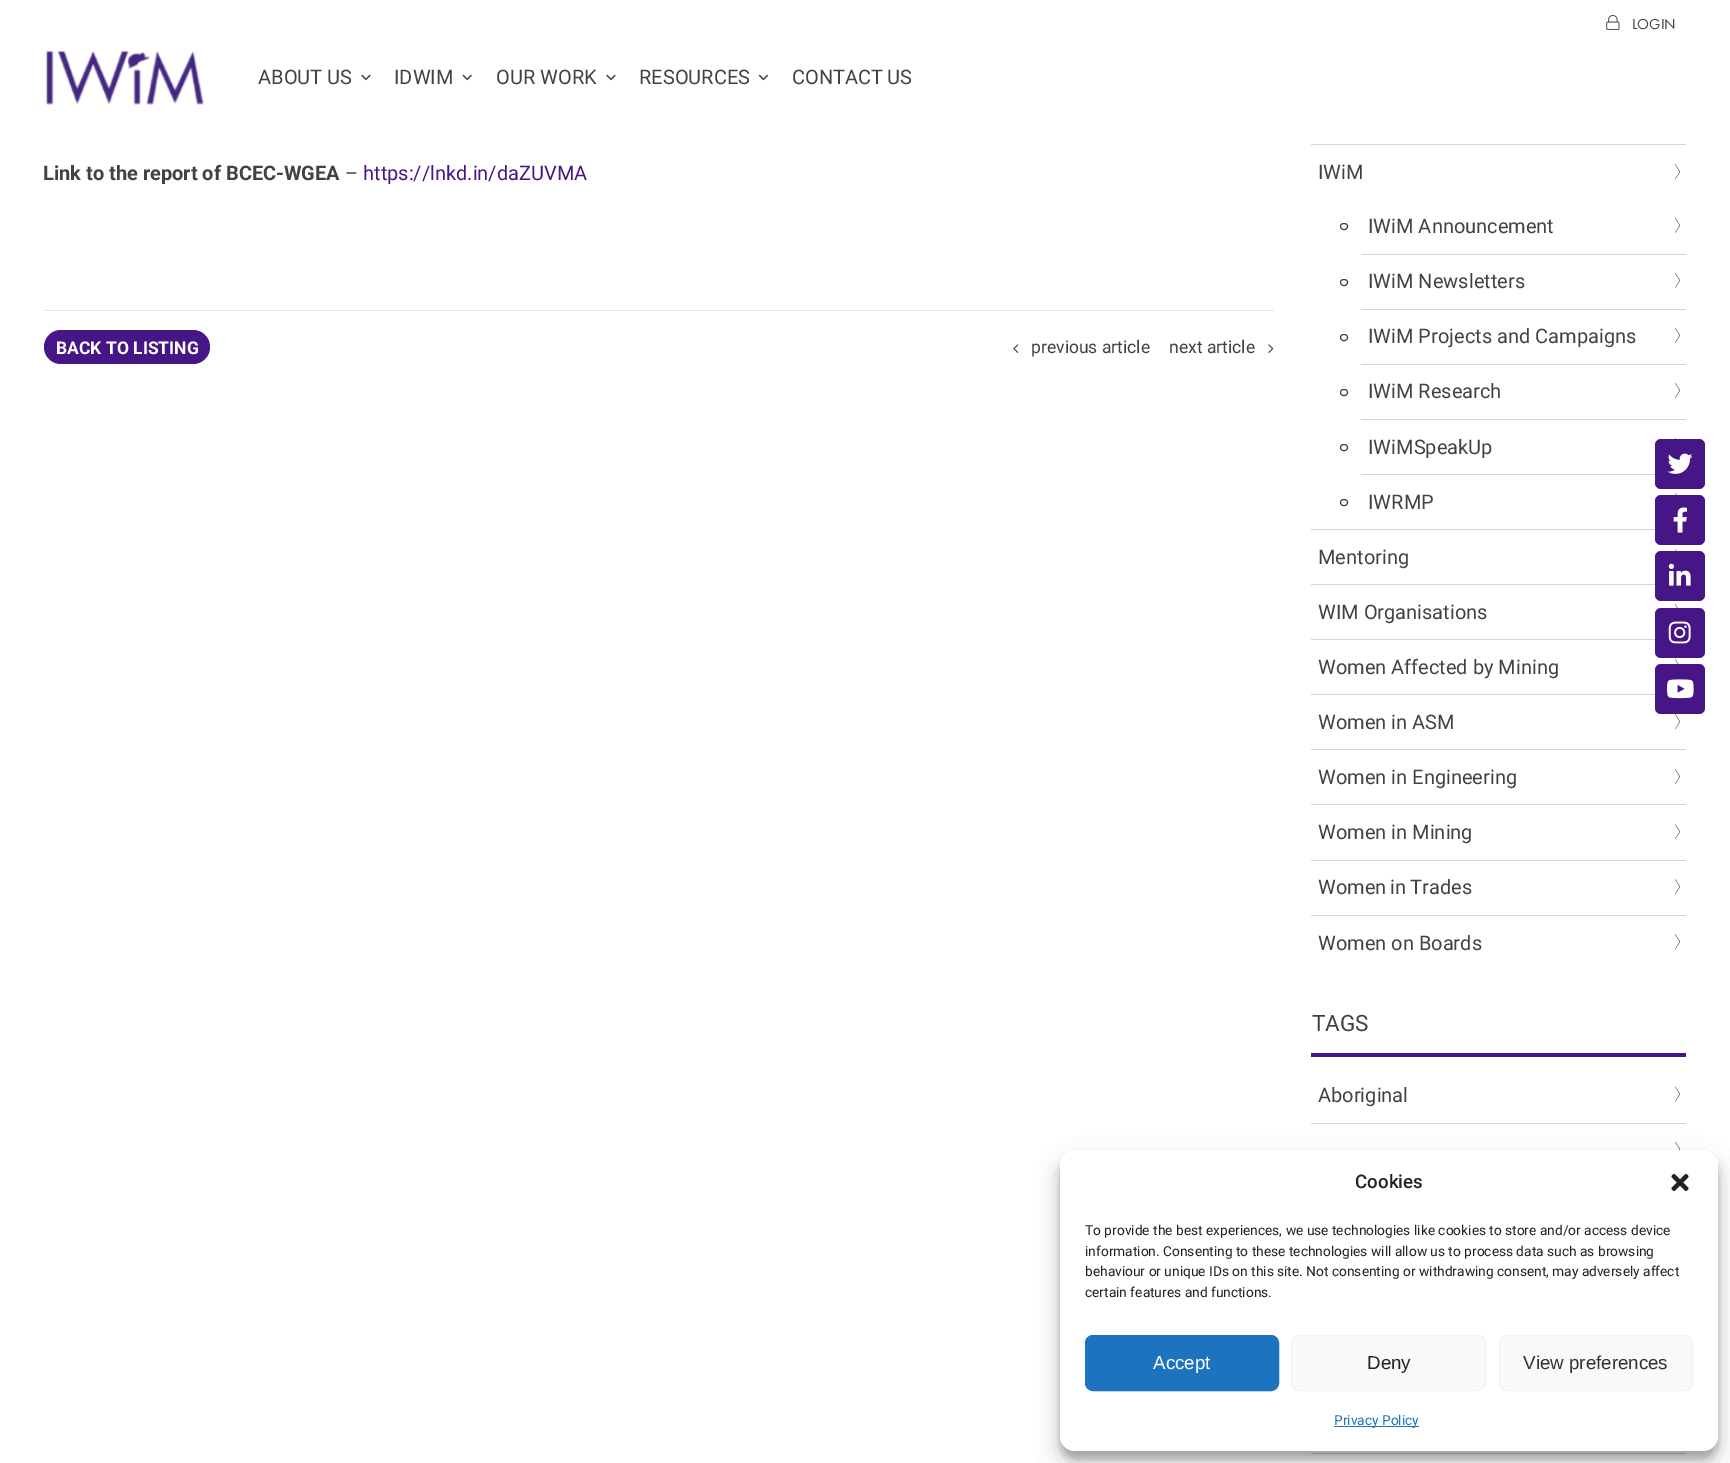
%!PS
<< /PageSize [1730 1463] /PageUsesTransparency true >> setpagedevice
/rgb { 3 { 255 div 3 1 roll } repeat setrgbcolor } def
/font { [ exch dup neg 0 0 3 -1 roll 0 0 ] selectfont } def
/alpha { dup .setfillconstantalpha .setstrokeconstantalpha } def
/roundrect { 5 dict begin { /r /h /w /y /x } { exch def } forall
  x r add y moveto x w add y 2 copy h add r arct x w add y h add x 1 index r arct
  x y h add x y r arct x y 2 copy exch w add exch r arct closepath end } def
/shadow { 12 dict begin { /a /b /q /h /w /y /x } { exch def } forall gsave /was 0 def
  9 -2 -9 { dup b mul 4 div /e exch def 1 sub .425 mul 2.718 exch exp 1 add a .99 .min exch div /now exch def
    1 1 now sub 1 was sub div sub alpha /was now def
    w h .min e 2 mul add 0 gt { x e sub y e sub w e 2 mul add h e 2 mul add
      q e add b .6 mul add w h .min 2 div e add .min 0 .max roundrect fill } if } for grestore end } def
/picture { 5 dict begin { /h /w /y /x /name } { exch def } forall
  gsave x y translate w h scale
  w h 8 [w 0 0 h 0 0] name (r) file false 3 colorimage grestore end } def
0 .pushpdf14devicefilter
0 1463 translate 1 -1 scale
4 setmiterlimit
255 255 255 rgb
0 0 1730 1463 rectfill
(img/1.rgb) 1606 15 14 15 picture
70 21 134 rgb
1655 439 50 50 6 roundrect fill
(img/2.rgb) 1667 453 26 21 picture
1655 495 50 50 6 roundrect fill
(img/3.rgb) 1673 507 14 26 picture
1655 551 50 50 6 roundrect fill
(img/4.rgb) 1668 563 23 23 picture
1655 608 50 50 6 roundrect fill
(img/5.rgb) 1668 621 23 23 picture
1655 664 50 50 6 roundrect fill
(img/6.rgb) 1667 679 27 20 picture
(img/7.rgb) 45 50 159 55 picture
(img/8.rgb) 361 74 10 7 picture
(img/9.rgb) 462 74 10 7 picture
(img/8.rgb) 606 74 10 7 picture
(img/10.rgb) 758 74 11 7 picture
226 226 226 rgb
44 310 1230 1 rectfill
70 21 134 rgb
44 330 166 34 17 roundrect fill
(img/11.rgb) 1013 344 6 9 picture
(img/12.rgb) 1268 344 6 9 picture
213 213 213 rgb
1311 144 375 1 rectfill
1311 529 344 1 rectfill
(img/13.rgb) 1675 164 6 16 picture
1361 254 325 1 rectfill
66 66 66 rgb
1340.5 223.5 7 6 3 roundrect stroke
(img/14.rgb) 1675 218 6 15 picture
213 213 213 rgb
1361 309 325 1 rectfill
66 66 66 rgb
1340.5 279.5 7 6 3 roundrect stroke
(img/14.rgb) 1675 273 6 15 picture
213 213 213 rgb
1361 364 325 1 rectfill
66 66 66 rgb
1340.5 334.5 7 6 3 roundrect stroke
(img/14.rgb) 1675 328 6 15 picture
213 213 213 rgb
1361 419 325 1 rectfill
66 66 66 rgb
1340.5 389.5 7 6 3 roundrect stroke
(img/14.rgb) 1675 383 6 15 picture
213 213 213 rgb
1361 474 294 1 rectfill
66 66 66 rgb
1340.5 444.5 7 6 3 roundrect stroke
(img/15.rgb) 1675 438 1 1 picture
1340.5 499.5 7 6 3 roundrect stroke
(img/16.rgb) 1675 493 2 2 picture
213 213 213 rgb
1311 584 344 1 rectfill
(img/17.rgb) 1675 549 2 2 picture
1311 639 344 1 rectfill
(img/18.rgb) 1675 604 3 4 picture
1311 694 344 1 rectfill
(img/19.rgb) 1675 659 4 5 picture
1311 749 375 1 rectfill
(img/13.rgb) 1675 714 6 16 picture
1311 804 375 1 rectfill
(img/13.rgb) 1675 769 6 16 picture
1311 860 375 1 rectfill
(img/13.rgb) 1675 824 6 16 picture
1311 915 375 1 rectfill
(img/13.rgb) 1675 879 6 16 picture
(img/13.rgb) 1675 934 6 16 picture
70 21 134 rgb
1311 1053 375 4 rectfill
213 213 213 rgb
1311 1123 375 1 rectfill
(img/20.rgb) 1675 1086 6 16 picture
(img/21.rgb) 1675 1141 6 9 picture
1311 1453 375 1 rectfill
0 0 0 rgb
1060 1158 658 301 15 4 0.23 shadow
1060 1163 658 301 15 12.5 0.19 shadow
255 255 255 rgb
1060 1150 658 301 15 roundrect fill
(img/22.rgb) 1671 1173 18 18 picture
30 115 190 rgb
1085.5 1335.5 193 55 7.5 roundrect gsave fill grestore
stroke
249 249 249 rgb
1291.5 1335.5 194 55 7.5 roundrect gsave fill grestore
242 242 242 rgb
stroke
249 249 249 rgb
1499.5 1335.5 193 55 7.5 roundrect gsave fill grestore
242 242 242 rgb
stroke
30 115 190 rgb
1334 1426 85 1 rectfill
/FuturaPT-Regular 15 font
66 66 66 rgb
1632 29 moveto (LOGIN) show
/Roboto-Regular 20 font
[
  [(ABOUT US) 258 84]
  [(IDWIM) 394 84]
  [(OUR WORK) 496 84]
  [(RESOURCES) 639 84]
] { aload pop moveto show } forall
792 84 moveto -1 0 32 (CONTACT US) widthshow
/Roboto-Bold 20 font
43 180 moveto (Link to the report of BCEC-WGEA) show
/Roboto-Regular 20 font
345 180 moveto (–) show
70 21 134 rgb
363 180 moveto (https://lnkd.in/daZUVMA) show
/Roboto-Bold 17.5 font
255 255 255 rgb
56 354 moveto (BACK TO LISTING) show
/Roboto-Regular 17.5 font
66 66 66 rgb
1031 353 moveto (previous article) show
1169 353 moveto (next article) show
/Roboto-Regular 20 font
[
  [(IWiM) 1318 179]
  [(IWiM Announcement) 1368 233]
  [(IWiM Newsletters) 1368 288]
  [(IWiM Projects and Campaigns) 1368 343]
  [(IWiM Research) 1368 398]
  [(IWiMSpeakUp) 1368 454]
  [(IWRMP) 1368 509]
  [(Mentoring) 1318 564]
  [(WIM Organisations) 1318 619]
  [(Women Affected by Mining) 1318 674]
  [(Women in ASM) 1318 729]
  [(Women in Engineering) 1318 784]
  [(Women in Mining) 1318 839]
] { aload pop moveto show } forall
1318 894 moveto -1 0 32 (Women in Trades) widthshow
1318 950 moveto (Women on Boards) show
/Roboto-Regular 22.5 font
1312 1031 moveto (TAGS) show
/Roboto-Regular 20 font
1318 1102 moveto (Aboriginal) show
/Roboto-Medium 18.75 font
34 34 34 rgb
1355 1188 moveto (Cookies) show
/Roboto-Regular 13.75 font
[
  [(To provide the best experiences, we use technologies like cookies to store and/or access device) 1085 1235]
  [(information. Consenting to these technologies will allow us to process data such as browsing) 1085 1256]
  [(behaviour or unique IDs on this site. Not consenting or withdrawing consent, may adversely affect) 1085 1276]
  [(certain features and functions.) 1085 1297]
] { aload pop moveto show } forall
/LiberationSans-Regular 18.75 font
255 255 255 rgb
1153 1369 moveto (Accept) show
34 34 34 rgb
1367 1369 moveto (Deny) show
51 51 51 rgb
1523 1369 moveto (View preferences) show
/Roboto-Regular 13.75 font
30 115 190 rgb
1334 1425 moveto (Privacy Policy) show
.poppdf14devicefilter showpage
